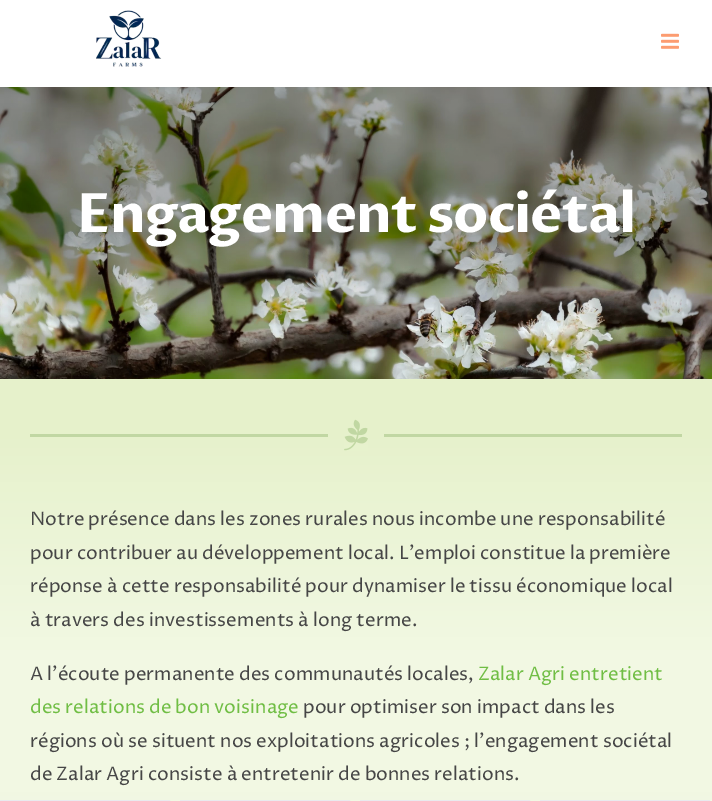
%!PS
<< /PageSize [712 801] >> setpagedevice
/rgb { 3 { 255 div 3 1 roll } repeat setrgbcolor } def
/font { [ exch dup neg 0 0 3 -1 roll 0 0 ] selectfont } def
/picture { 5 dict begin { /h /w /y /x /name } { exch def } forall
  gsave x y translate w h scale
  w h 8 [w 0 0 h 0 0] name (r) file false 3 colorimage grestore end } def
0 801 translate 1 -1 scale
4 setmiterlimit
255 255 255 rgb
0 0 712 801 rectfill
(img/1.rgb) 96 10 66 57 picture
(img/2.rgb) 661 33 18 16 picture
(img/3.rgb) 0 87 712 292 picture
gsave 0 379 moveto 712 379 lineto 712 792 lineto 0 792 lineto closepath clip newpath
<< /ShadingType 2 /ColorSpace /DeviceRGB /Coords [356 379 356 792] /Extend [true true] /Function << /FunctionType 3 /Domain [0 1] /Functions [<< /FunctionType 2 /Domain [0 1] /C0 [0.902 0.945 0.796] /C1 [0.902 0.945 0.796] /N 1 >> << /FunctionType 2 /Domain [0 1] /C0 [0.902 0.945 0.796] /C1 [0.949 0.973 0.89] /N 1 >> << /FunctionType 2 /Domain [0 1] /C0 [0.949 0.973 0.89] /C1 [0.949 0.973 0.89] /N 1 >>] /Bounds [0.12 0.67] /Encode [0 1 0 1 0 1] >> >> shfill grestore
193 215 163 rgb
30 434 298 3 rectfill
(img/4.rgb) 344 419 24 32 picture
384 434 298 3 rectfill
gsave 0 792 moveto 712 792 lineto 712 801 lineto 0 801 lineto closepath clip newpath
<< /ShadingType 2 /ColorSpace /DeviceRGB /Coords [356 792 356 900] /Extend [true true] /Function << /FunctionType 2 /Domain [0 1] /C0 [0.945 0.969 0.886] /C1 [0.988 0.992 0.976] /N 1 >> >> shfill grestore
233 234 238 rgb
0.5 800.5 169 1 rectstroke
180.5 800.5 169 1 rectstroke
360.5 800.5 169 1 rectstroke
540.5 800.5 169 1 rectstroke
/ProzaLibre-Bold 54.25 font
255 255 255 rgb
77 232 moveto -1 0 (Engagement sociétal) ashow
/ProzaLibre-Regular 18.65 font
70 70 70 rgb
[
  [(Notre présence dans les zones rurales nous incombe une responsabilité) 30 525]
  [(pour contribuer au développement local. L’emploi constitue la première) 30 559]
  [(réponse à cette responsabilité pour dynamiser le tissu économique local) 30 592]
  [(à travers des investissements à long terme.) 30 626]
  [(A l’écoute permanente des communautés locales,) 30 680]
] { aload pop moveto show } forall
112 190 68 rgb
478 680 moveto (Zalar Agri entretient) show
30 713 moveto (des relations de bon voisinage) show
70 70 70 rgb
[
  [(pour optimiser son impact dans les) 303 713]
  [(régions où se situent nos exploitations agricoles ; l’engagement sociétal) 30 747]
  [(de Zalar Agri consiste à entretenir de bonnes relations.) 30 780]
] { aload pop moveto show } forall
showpage
